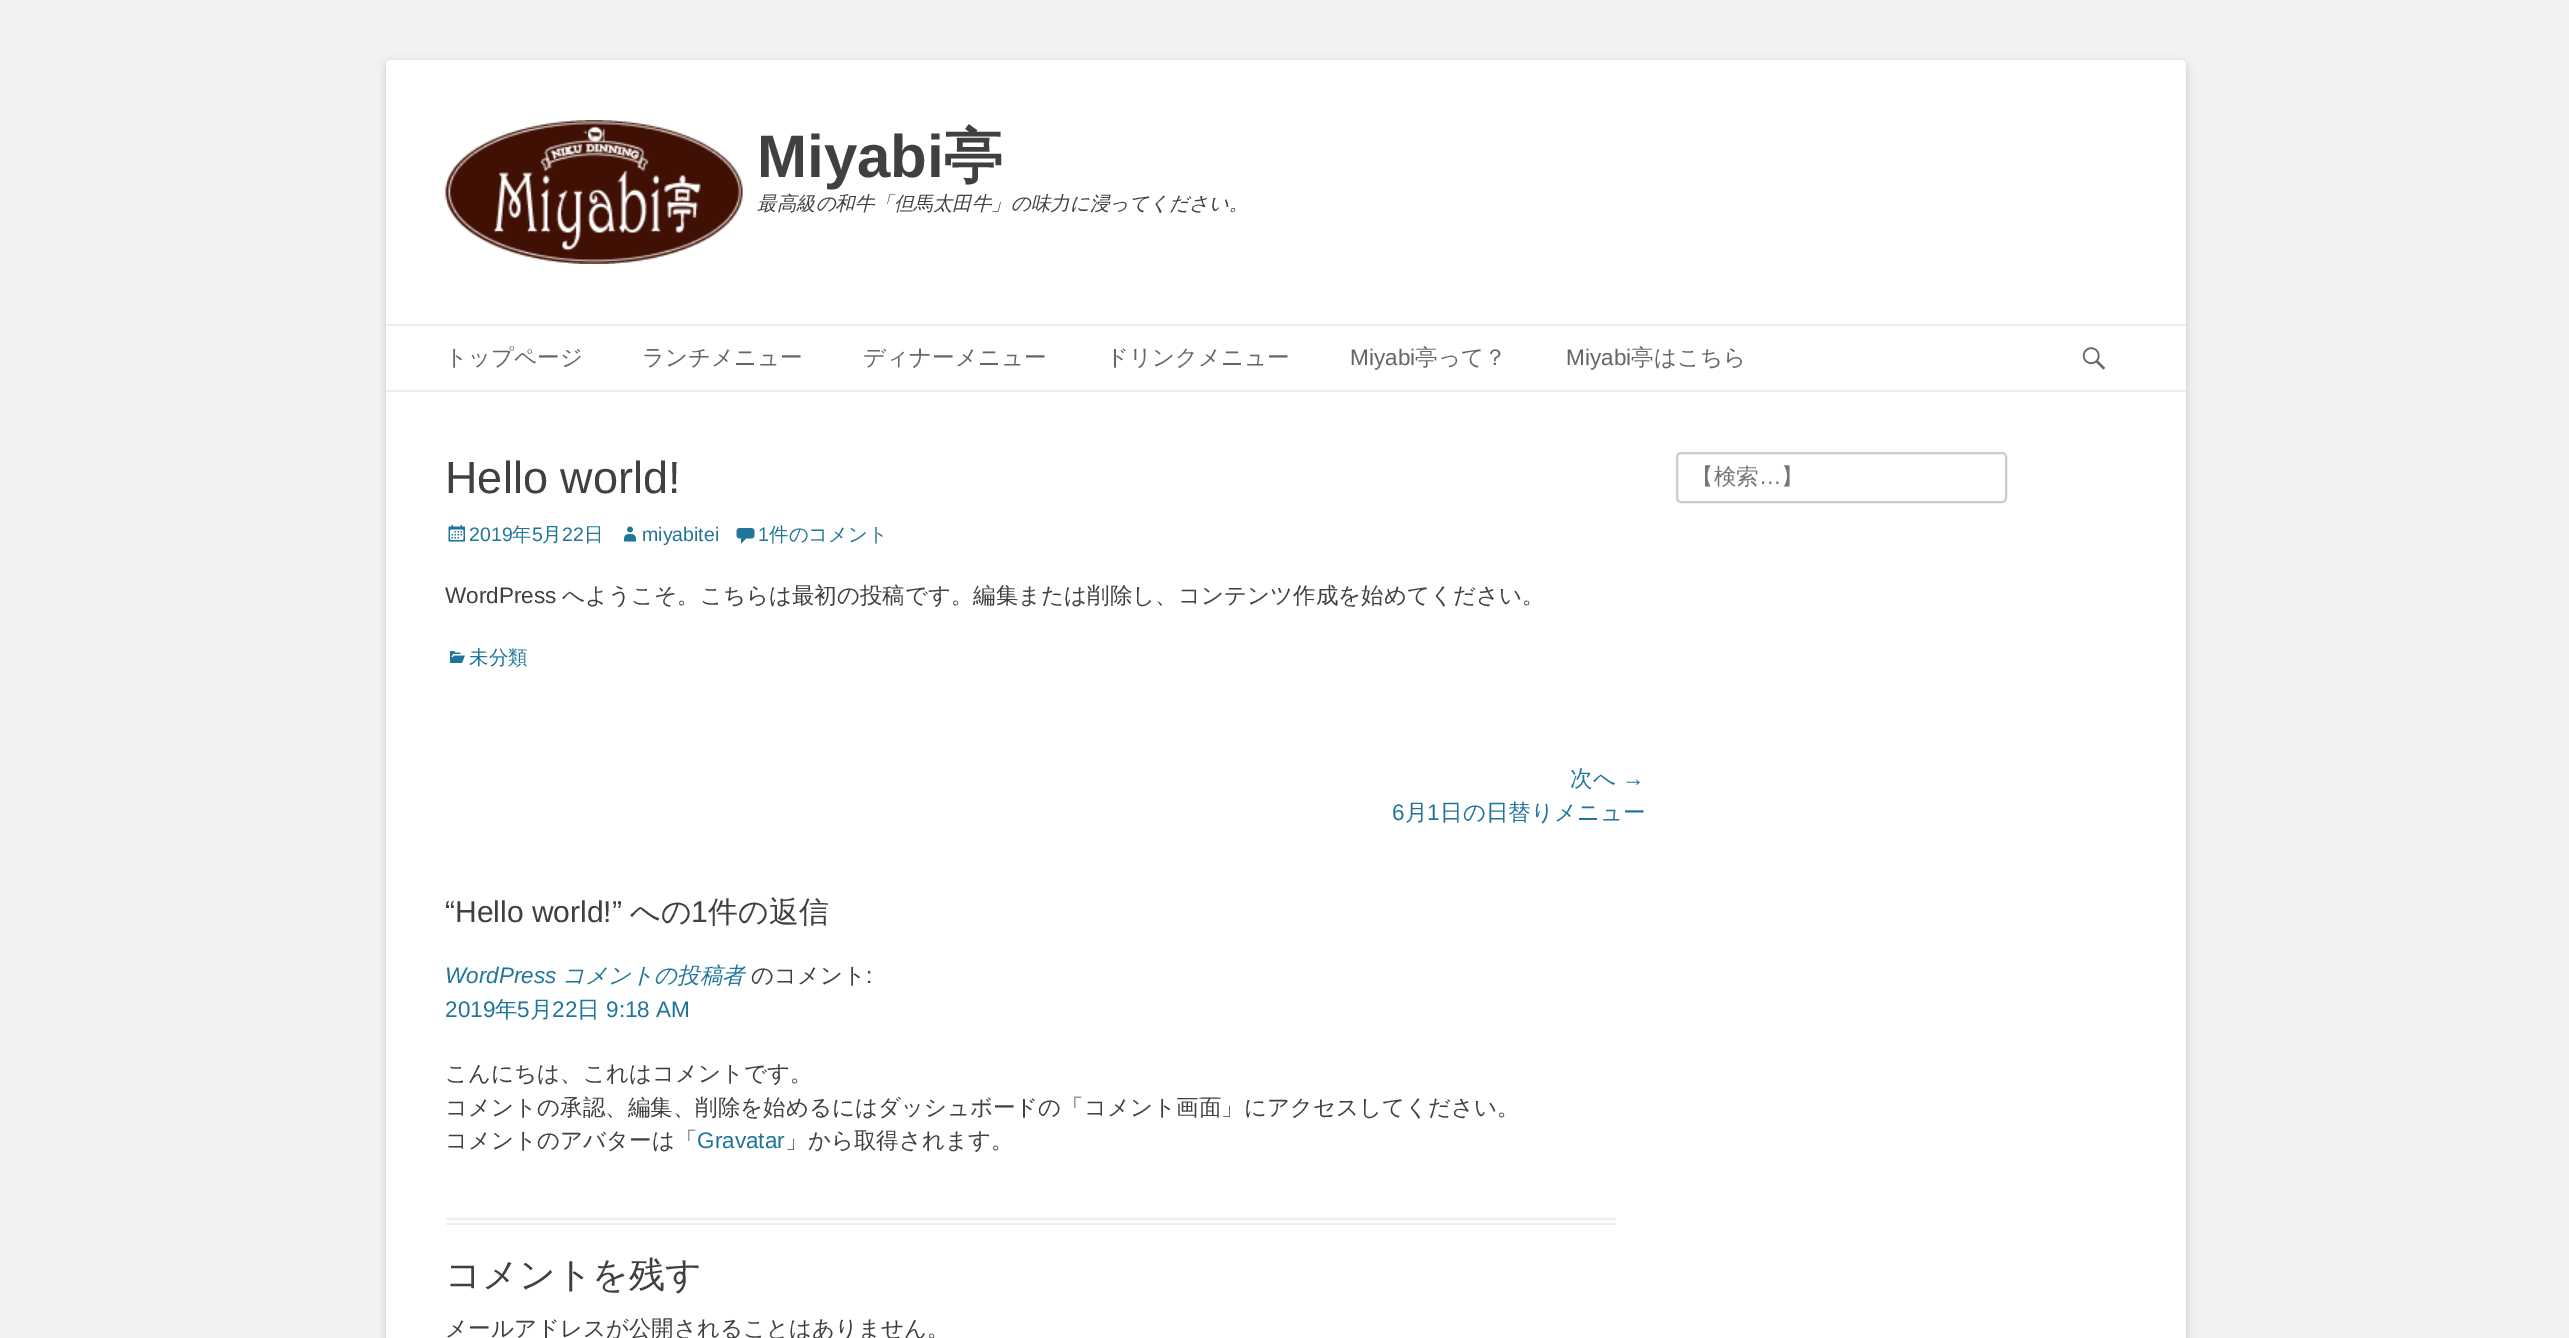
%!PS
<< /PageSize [2569 1338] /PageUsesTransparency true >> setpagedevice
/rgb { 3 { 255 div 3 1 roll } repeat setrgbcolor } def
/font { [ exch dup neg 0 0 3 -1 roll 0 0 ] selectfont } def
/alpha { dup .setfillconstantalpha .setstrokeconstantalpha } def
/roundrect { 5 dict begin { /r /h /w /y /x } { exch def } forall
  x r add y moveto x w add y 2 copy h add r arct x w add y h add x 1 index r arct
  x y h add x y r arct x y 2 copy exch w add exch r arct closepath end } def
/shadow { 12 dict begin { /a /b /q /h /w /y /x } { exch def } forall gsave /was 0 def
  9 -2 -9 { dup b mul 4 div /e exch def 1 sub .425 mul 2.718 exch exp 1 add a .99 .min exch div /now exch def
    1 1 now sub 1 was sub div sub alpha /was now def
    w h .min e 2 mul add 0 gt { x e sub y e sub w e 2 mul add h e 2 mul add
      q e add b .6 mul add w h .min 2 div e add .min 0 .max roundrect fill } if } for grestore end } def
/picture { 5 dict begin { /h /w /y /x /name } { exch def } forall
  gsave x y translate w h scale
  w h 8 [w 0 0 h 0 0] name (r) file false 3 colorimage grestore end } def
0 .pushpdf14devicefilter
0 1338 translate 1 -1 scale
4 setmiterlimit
242 242 242 rgb
0 0 2569 1338 rectfill
100 100 100 rgb
386 63 1800 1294 5 4.5 0.3 shadow
255 255 255 rgb
386 60 1800 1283 5 roundrect fill
(img/1.rgb) 445 120 298 144 picture
238 238 238 rgb
386 324 1800 2 rectfill
386 390 1800 2 rectfill
(img/2.rgb) 2082 347 24 23 picture
(img/3.rgb) 448 525 17 17 picture
(img/4.rgb) 624 526 12 16 picture
(img/5.rgb) 736 528 19 16 picture
(img/6.rgb) 450 651 15 12 picture
446 1218 1170 2 rectfill
446 1223 1170 2 rectfill
204 204 204 rgb
2 setlinewidth
1677 453 329 49 4 roundrect stroke
/LiberationSans-Bold 60 font
64 64 64 rgb
757 177 moveto (Miyabi) show
/WenQuanYiZenHei-Bold 60 font
943 177 moveto (亭) show
/WenQuanYiZenHei-MediumItalic 19.5 font
757 210 moveto (最高級の和牛「但馬太田牛」の味力に浸ってください。) show
/WenQuanYiZenHei-Medium 22.5 font
102 102 102 rgb
[
  [(トップページ) 445 365]
  [(ランチメニュー) 642 365]
  [(ディナーメニュー) 863 365]
  [(ドリンクメニュー) 1106 365]
] { aload pop moveto show } forall
/LiberationSans-Regular 22.5 font
1350 365 moveto (Miyabi) show
/WenQuanYiZenHei-Medium 22.5 font
1415 365 moveto (亭って？) show
/LiberationSans-Regular 22.5 font
1566 365 moveto (Miyabi) show
/WenQuanYiZenHei-Medium 22.5 font
1631 365 moveto (亭はこちら) show
/LiberationSans-Regular 45 font
64 64 64 rgb
445 493 moveto (Hello world!) show
/LiberationSans-Regular 19.5 font
33 117 155 rgb
469 541 moveto (2019) show
/WenQuanYiZenHei-Medium 19.5 font
512 541 moveto (年) show
/LiberationSans-Regular 19.5 font
532 541 moveto (5) show
/WenQuanYiZenHei-Medium 19.5 font
542 541 moveto (月) show
/LiberationSans-Regular 19.5 font
562 541 moveto (22) show
/WenQuanYiZenHei-Medium 19.5 font
584 541 moveto (日) show
/LiberationSans-Regular 19.5 font
642 541 moveto (miyabitei) show
758 541 moveto (1) show
/WenQuanYiZenHei-Medium 19.5 font
769 541 moveto (件のコメント) show
/LiberationSans-Regular 22.5 font
64 64 64 rgb
445 603 moveto (WordPress) show
/WenQuanYiZenHei-Medium 22.5 font
562 603 moveto (へようこそ。こちらは最初の投稿です。編集または削除し、コンテンツ作成を始めてください。) show
/WenQuanYiZenHei-Medium 19.5 font
33 117 155 rgb
469 664 moveto (未分類) show
/WenQuanYiZenHei-Medium 22.5 font
1570 786 moveto (次へ) show
/LiberationSans-Regular 22.5 font
1622 786 moveto (→) show
1392 820 moveto (6) show
/WenQuanYiZenHei-Medium 22.5 font
1405 820 moveto (月) show
/LiberationSans-Regular 22.5 font
1427 820 moveto (1) show
/WenQuanYiZenHei-Medium 22.5 font
1440 820 moveto (日の日替りメニュー) show
/LiberationSans-Regular 30 font
64 64 64 rgb
445 922 moveto (“Hello world!”) show
/WenQuanYiZenHei-Medium 30 font
630 922 moveto (への) show
/LiberationSans-Regular 30 font
691 922 moveto (1) show
/WenQuanYiZenHei-Medium 30 font
708 922 moveto (件の返信) show
/LiberationSans-Italic 22.5 font
33 117 155 rgb
445 983 moveto (WordPress) show
/WenQuanYiZenHei-MediumItalic 22.5 font
562 983 moveto (コメントの投稿者) show
/WenQuanYiZenHei-Medium 22.5 font
64 64 64 rgb
751 983 moveto (のコメント) show
/LiberationSans-Regular 22.5 font
866 983 moveto (:) show
33 117 155 rgb
445 1017 moveto (2019) show
/WenQuanYiZenHei-Medium 22.5 font
495 1017 moveto (年) show
/LiberationSans-Regular 22.5 font
517 1017 moveto (5) show
/WenQuanYiZenHei-Medium 22.5 font
530 1017 moveto (月) show
/LiberationSans-Regular 22.5 font
552 1017 moveto (22) show
/WenQuanYiZenHei-Medium 22.5 font
577 1017 moveto (日) show
/LiberationSans-Regular 22.5 font
606 1017 moveto (9:18 AM) show
/WenQuanYiZenHei-Medium 22.5 font
64 64 64 rgb
[
  [(こんにちは、これはコメントです。) 445 1081]
  [(コメントの承認、編集、削除を始めるにはダッシュボードの「コメント画面」にアクセスしてください。) 445 1115]
  [(コメントのアバターは「) 445 1148]
] { aload pop moveto show } forall
/LiberationSans-Regular 22.5 font
33 117 155 rgb
697 1148 moveto (Gravatar) show
/WenQuanYiZenHei-Medium 22.5 font
64 64 64 rgb
785 1148 moveto (」から取得されます。) show
/WenQuanYiZenHei-Medium 36 font
445 1287 moveto (コメントを残す) show
/WenQuanYiZenHei-Medium 22.5 font
445 1336 moveto (メールアドレスが公開されることはありません。) show
117 117 117 rgb
1691 484 moveto (【検索) show
/LiberationSans-Regular 22.5 font
1759 484 moveto (…) show
/WenQuanYiZenHei-Medium 22.5 font
1781 484 moveto (】) show
.poppdf14devicefilter showpage
